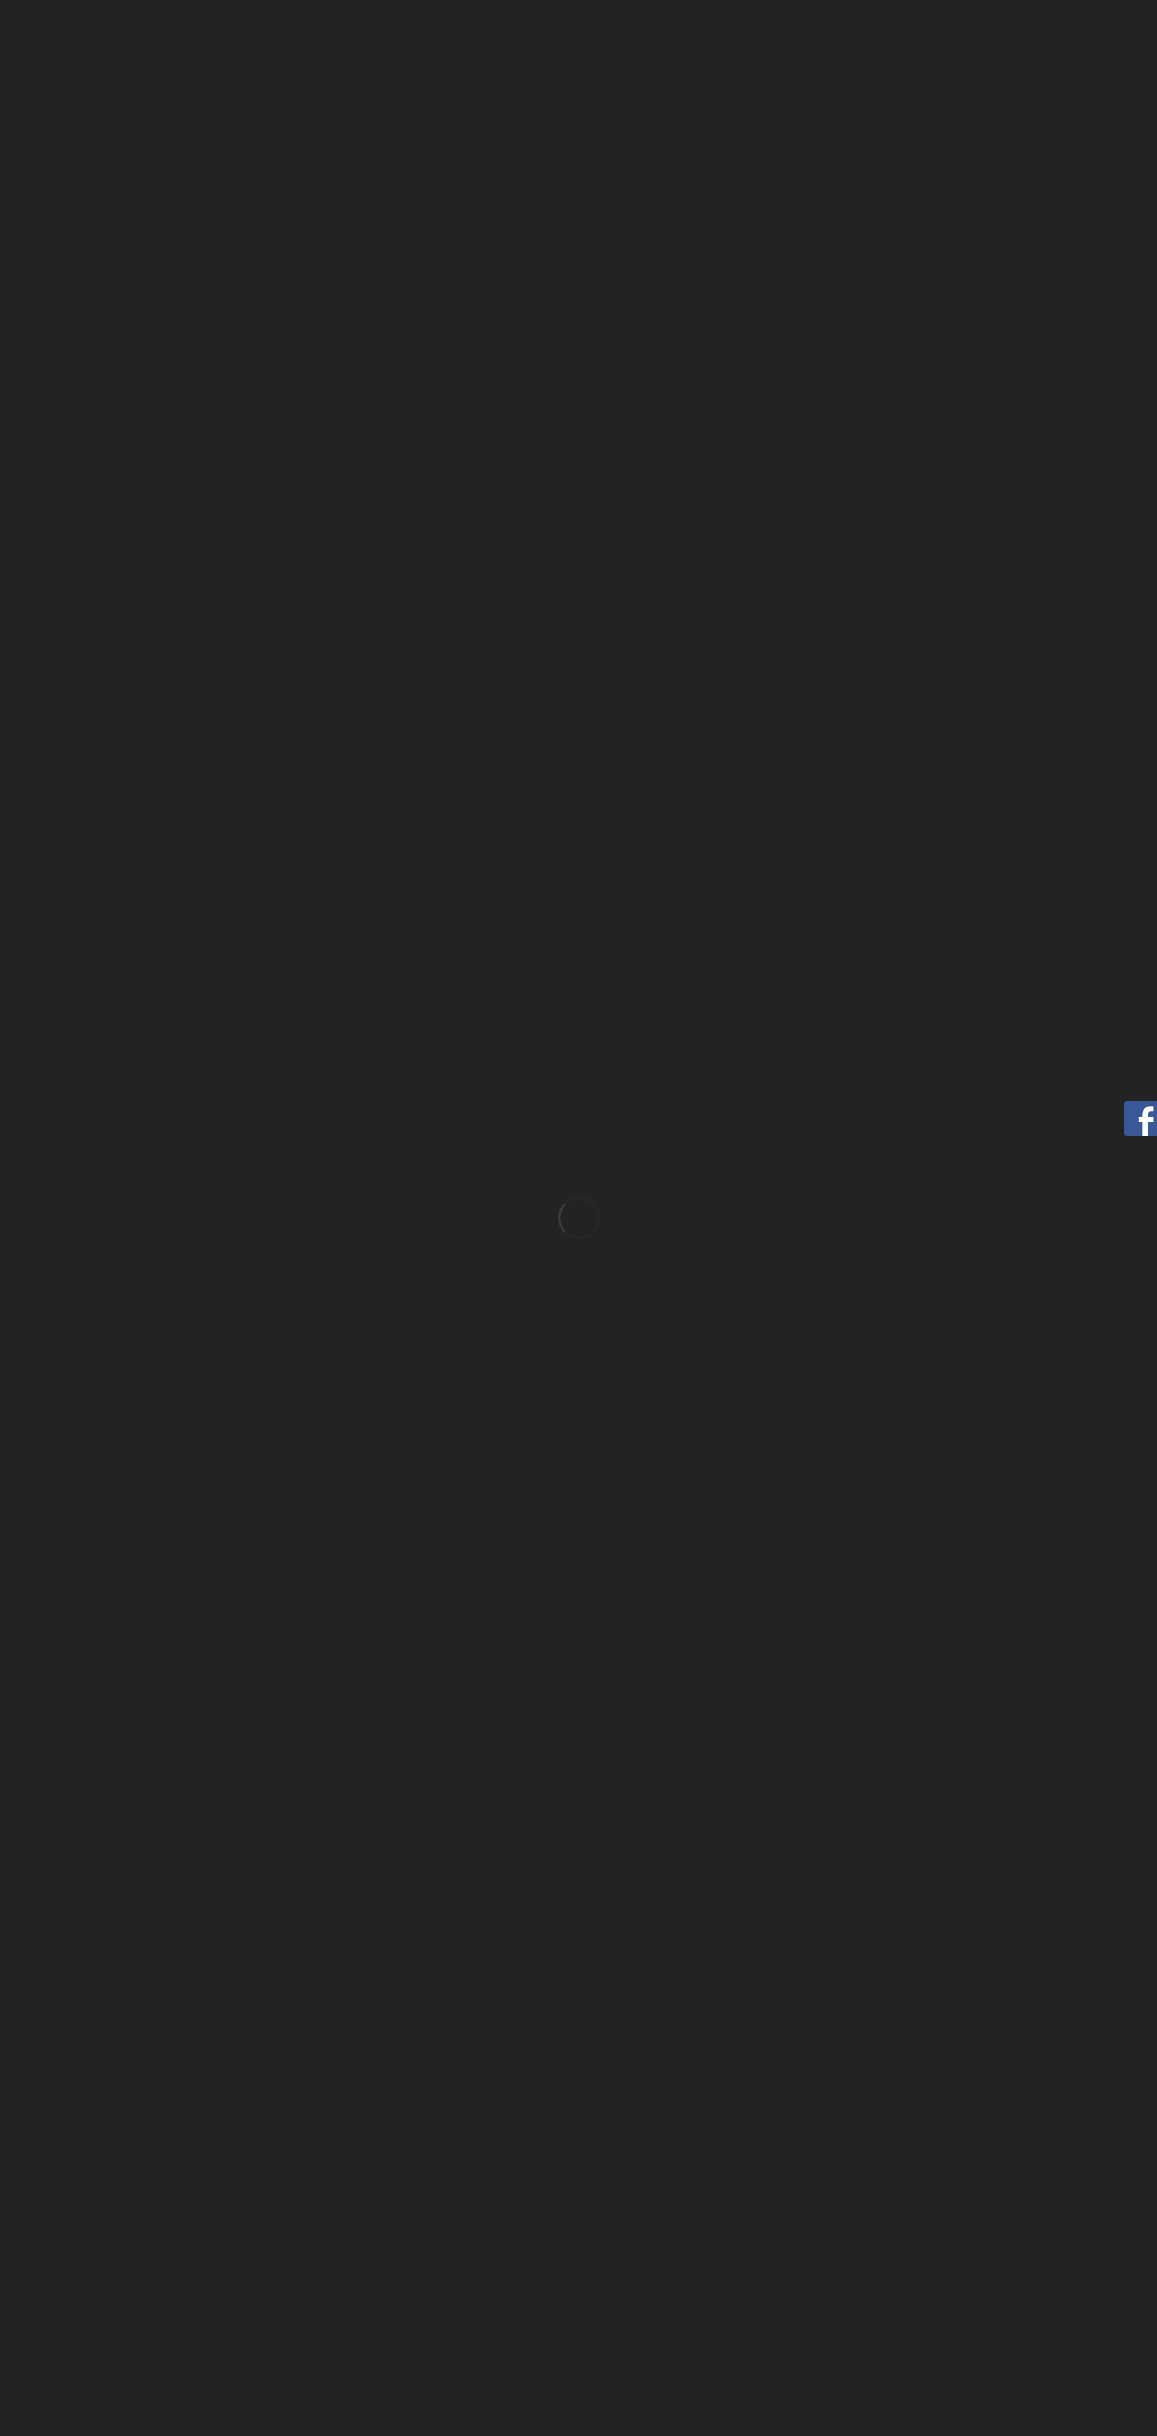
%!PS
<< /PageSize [1157 2436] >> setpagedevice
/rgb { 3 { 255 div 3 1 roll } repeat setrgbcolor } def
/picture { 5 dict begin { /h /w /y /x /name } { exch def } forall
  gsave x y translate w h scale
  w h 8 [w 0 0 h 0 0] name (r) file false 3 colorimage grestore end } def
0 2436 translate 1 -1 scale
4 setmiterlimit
35 35 35 rgb
0 0 1157 2436 rectfill
(img/1.rgb) 1124 1101 33 35 picture
39 39 39 rgb
2 setlinewidth
565 1204 moveto 568.5 1200 573.5 1198 579 1198 curveto 603 1198 606.5 1233 583 1237.5 curveto 576.5 1239 569.5 1237 565 1232 curveto stroke
61 60 55 rgb
565 1232 moveto 557 1224.5 557 1211.5 565 1204 curveto stroke
showpage
